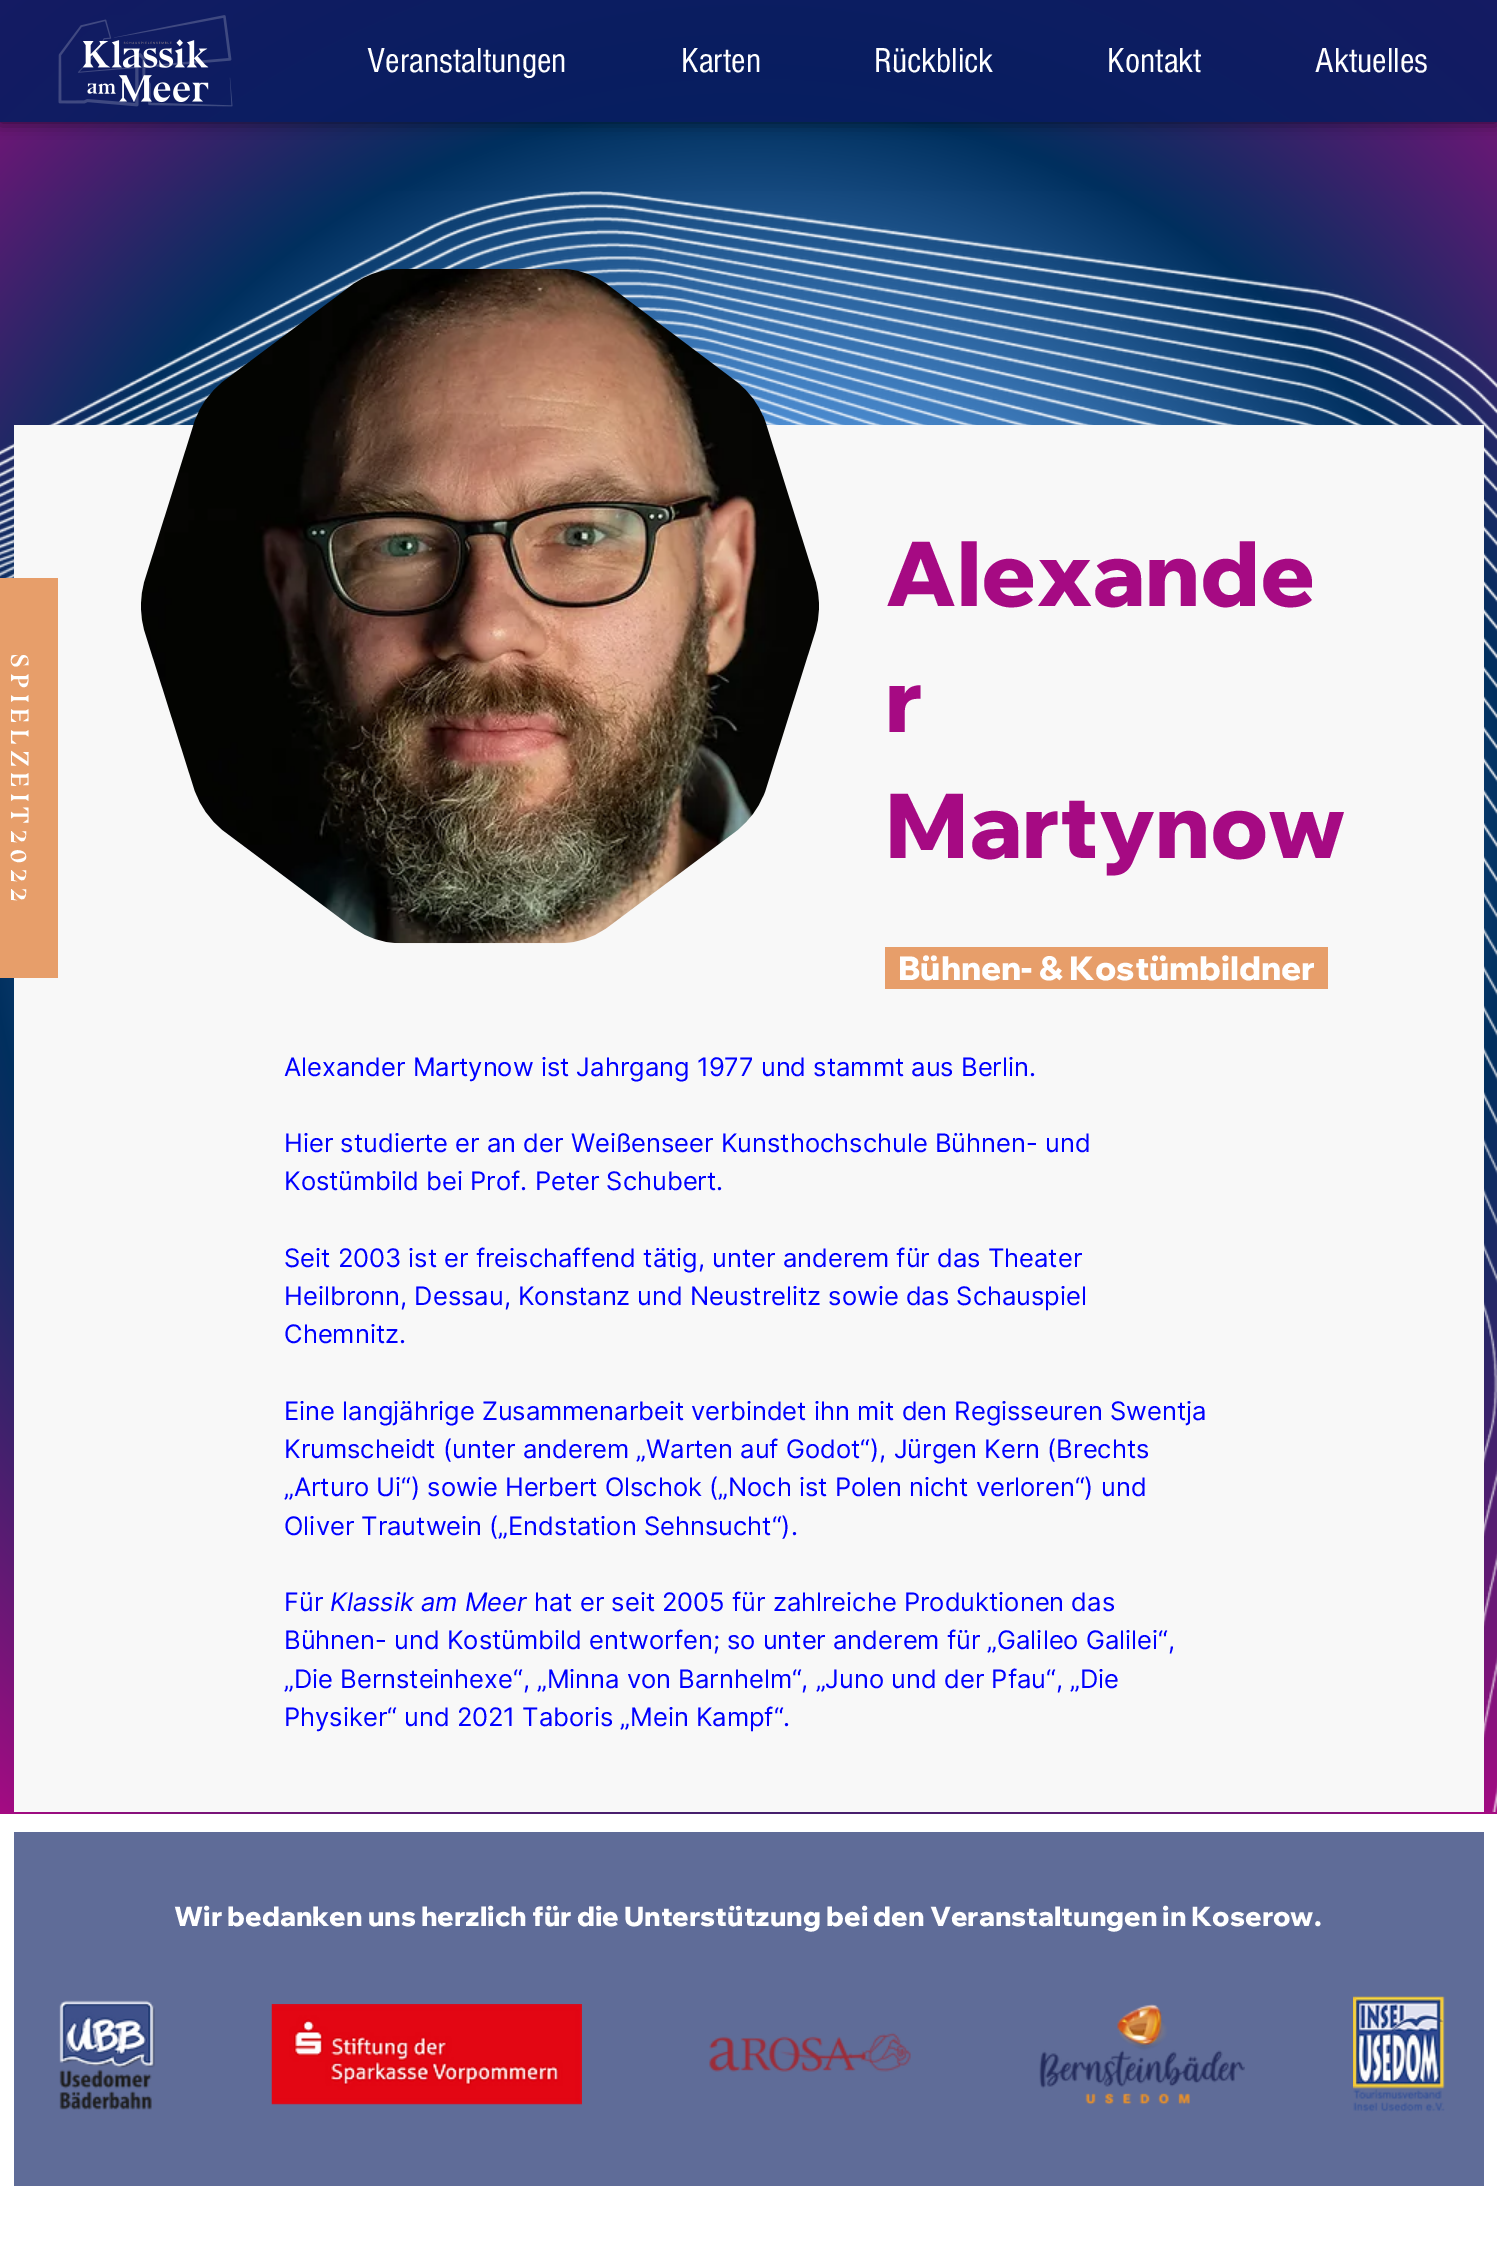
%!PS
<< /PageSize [1497 2248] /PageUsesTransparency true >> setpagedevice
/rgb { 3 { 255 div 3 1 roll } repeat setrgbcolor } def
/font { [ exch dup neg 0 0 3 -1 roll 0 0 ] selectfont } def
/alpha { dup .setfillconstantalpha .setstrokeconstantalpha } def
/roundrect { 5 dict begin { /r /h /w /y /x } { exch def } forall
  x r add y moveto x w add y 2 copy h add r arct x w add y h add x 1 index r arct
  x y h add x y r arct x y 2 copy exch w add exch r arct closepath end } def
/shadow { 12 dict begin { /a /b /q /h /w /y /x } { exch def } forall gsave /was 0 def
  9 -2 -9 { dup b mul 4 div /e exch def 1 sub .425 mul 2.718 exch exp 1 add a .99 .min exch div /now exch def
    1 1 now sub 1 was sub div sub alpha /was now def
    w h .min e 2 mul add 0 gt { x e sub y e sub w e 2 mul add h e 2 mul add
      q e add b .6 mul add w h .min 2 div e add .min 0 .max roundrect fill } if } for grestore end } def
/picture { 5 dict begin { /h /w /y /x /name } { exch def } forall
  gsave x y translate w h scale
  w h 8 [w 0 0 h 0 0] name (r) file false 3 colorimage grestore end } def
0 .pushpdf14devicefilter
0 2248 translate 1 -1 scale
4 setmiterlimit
255 255 255 rgb
0 0 1497 2248 rectfill
gsave 0 0 moveto 1497 0 lineto 1497 1814 lineto 0 1814 lineto closepath clip newpath 749 863 translate 1210 1210 scale
<< /ShadingType 3 /ColorSpace /DeviceRGB /Coords [0 0 0 0 0 1] /Extend [true true] /Function << /FunctionType 3 /Domain [0 1] /Functions [<< /FunctionType 2 /Domain [0 1] /C0 [0.894 0.922 0.988] /C1 [0.345 0.608 0.89] /N 1 >> << /FunctionType 2 /Domain [0 1] /C0 [0.345 0.608 0.89] /C1 [0 0.184 0.369] /N 1 >> << /FunctionType 2 /Domain [0 1] /C0 [0 0.184 0.369] /C1 [0.651 0.039 0.514] /N 1 >>] /Bounds [0.32 0.63] /Encode [0 1 0 1 0 1] >> >> shfill grestore
gsave
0 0 moveto 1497 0 lineto 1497 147 lineto 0 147 lineto closepath 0 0 moveto 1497 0 lineto 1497 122 lineto 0 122 lineto closepath eoclip newpath
0 0 0 rgb
0 0 1497 122 0 8 0.6 shadow
grestore
0.91 alpha
8 28 96 rgb
0 0 1497 122 rectfill
1 alpha
(img/1.rgb) 58 15 175 92 picture
(img/2.rgb) 0 191 1497 1621 picture
248 248 248 rgb
14 425 1470 1387 rectfill
231 158 106 rgb
0 578 58 400 rectfill
(img/3.rgb) 141 269 678 675 picture
885 947 443 42 rectfill
95 108 152 rgb
14 1832 1470 354 rectfill
(img/4.rgb) 59 2000 96 110 picture
(img/5.rgb) 271 2004 311 101 picture
(img/6.rgb) 709 2032 202 40 picture
(img/7.rgb) 1039 2004 206 101 picture
(img/8.rgb) 1353 1996 92 116 picture
/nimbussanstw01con-Regular 36 font
255 255 255 rgb
[
  [(Veranstaltungen) 367 72]
  [(Karten) 681 72]
  [(Rückblick) 874 72]
  [(Kontakt) 1107 72]
  [(Aktuelles) 1315 72]
] { aload pop moveto show } forall
/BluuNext-Bold 25.5 font
gsave 11 654 translate 90 rotate 0 0 moveto (S P I E L Z E I T) show grestore
gsave 11 830 translate 90 rotate 0 0 moveto (2 0 2 2) show grestore
/WixMadeforDisplay-ExtraBold 90 font
166 10 131 rgb
[
  [(Alexande) 885 606]
  [(r) 885 732]
  [(Martynow) 885 858]
] { aload pop moveto show } forall
/WixMadeforDisplay-ExtraBold 33 font
255 255 255 rgb
898 980 moveto (Bühnen- & Kostümbildner) show
/Inter-Regular 25.5 font
0 0 255 rgb
[
  [(Alexander Martynow ist Jahrgang 1977 und stammt aus Berlin.) 284 1076]
  [(Hier studierte er an der Weißenseer Kunsthochschule Bühnen- und) 284 1152]
  [(Kostümbild bei Prof. Peter Schubert.) 284 1190]
  [(Seit 2003 ist er freischaffend tätig, unter anderem für das Theater) 284 1267]
  [(Heilbronn, Dessau, Konstanz und Neustrelitz sowie das Schauspiel) 284 1305]
  [(Chemnitz.) 284 1343]
  [(Eine langjährige Zusammenarbeit verbindet ihn mit den Regisseuren Swentja) 284 1420]
  [(Krumscheidt \(unter anderem „Warten auf Godot“\), Jürgen Kern \(Brechts) 284 1458]
  [(„Arturo Ui“\) sowie Herbert Olschok \(„Noch ist Polen nicht verloren“\) und) 284 1496]
  [(Oliver Trautwein \(„Endstation Sehnsucht“\).) 284 1535]
  [(Für) 284 1611]
] { aload pop moveto show } forall
/Inter-Italic 25.5 font
330 1611 moveto (Klassik am Meer) show
/Inter-Regular 25.5 font
[
  [(hat er seit 2005 für zahlreiche Produktionen das) 534 1611]
  [(Bühnen- und Kostümbild entworfen; so unter anderem für „Galileo Galilei“,) 284 1649]
  [(„Die Bernsteinhexe“, „Minna von Barnhelm“, „Juno und der Pfau“, „Die) 284 1688]
  [(Physiker“ und 2021 Taboris „Mein Kampf“.) 284 1726]
] { aload pop moveto show } forall
/WixMadeforDisplay-ExtraBold 27 font
255 255 255 rgb
174 1926 moveto (Wir bedanken uns herzlich für die Unterstützung bei den Veranstaltungen in Koserow.) show
.poppdf14devicefilter showpage
